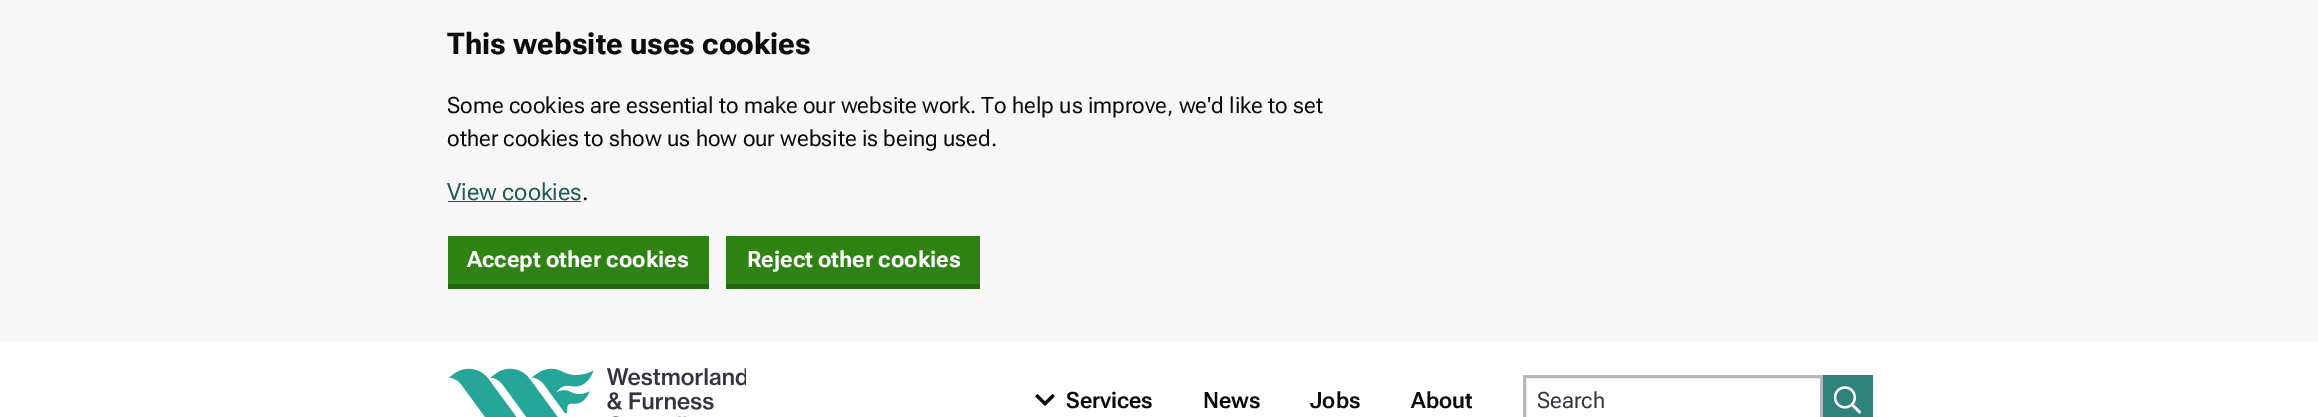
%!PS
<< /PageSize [2318 417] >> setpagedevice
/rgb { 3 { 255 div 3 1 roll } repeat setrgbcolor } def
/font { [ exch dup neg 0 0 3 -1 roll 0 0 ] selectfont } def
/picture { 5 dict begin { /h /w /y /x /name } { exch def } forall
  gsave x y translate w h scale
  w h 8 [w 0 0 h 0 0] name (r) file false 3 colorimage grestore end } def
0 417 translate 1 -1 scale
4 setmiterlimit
255 255 255 rgb
0 0 2318 417 rectfill
[
  [0 0 2318 341 247 247 248]
  [448 201 133 1 32 91 86]
  [448 236 261 48 47 130 20]
  [448 284 261 5 37 103 16]
  [726 236 254 48 47 130 20]
  [726 284 254 5 37 103 16]
] { aload pop rgb rectfill } forall
(img/1.rgb) 449 368 297 49 picture
(img/2.rgb) 1035 394 20 12 picture
184 184 194 rgb
3 setlinewidth
1524.5 376.5 297 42 rectstroke
47 131 123 rgb
1823 375 50 42 rectfill
(img/3.rgb) 1834 386 27 28 picture
/RobotoFlex-Bold 30 font
11 12 12 rgb
447 54 moveto (This website uses cookies) show
/RobotoFlex-Regular 22.5 font
447 113 moveto (Some cookies are essential to make our website work. To help us improve, we'd like to set) show
447 146 moveto (other cookies to show us how our website is being used.) show
/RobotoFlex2-Regular 23.75 font
32 91 86 rgb
447 200 moveto (View cookies) show
11 12 12 rgb
582 200 moveto (.) show
/RobotoFlex2-Bold 22.5 font
255 255 255 rgb
467 267 moveto (Accept other cookies) show
747 267 moveto (Reject other cookies) show
/RobotoFlex-SemiBold 22.5 font
11 12 12 rgb
[
  [(Services) 1066 408]
  [(News) 1203 408]
  [(Jobs) 1310 408]
  [(About) 1411 408]
] { aload pop moveto show } forall
/RobotoFlex-Regular 22.5 font
52 52 62 rgb
1537 408 moveto (Search) show
showpage
